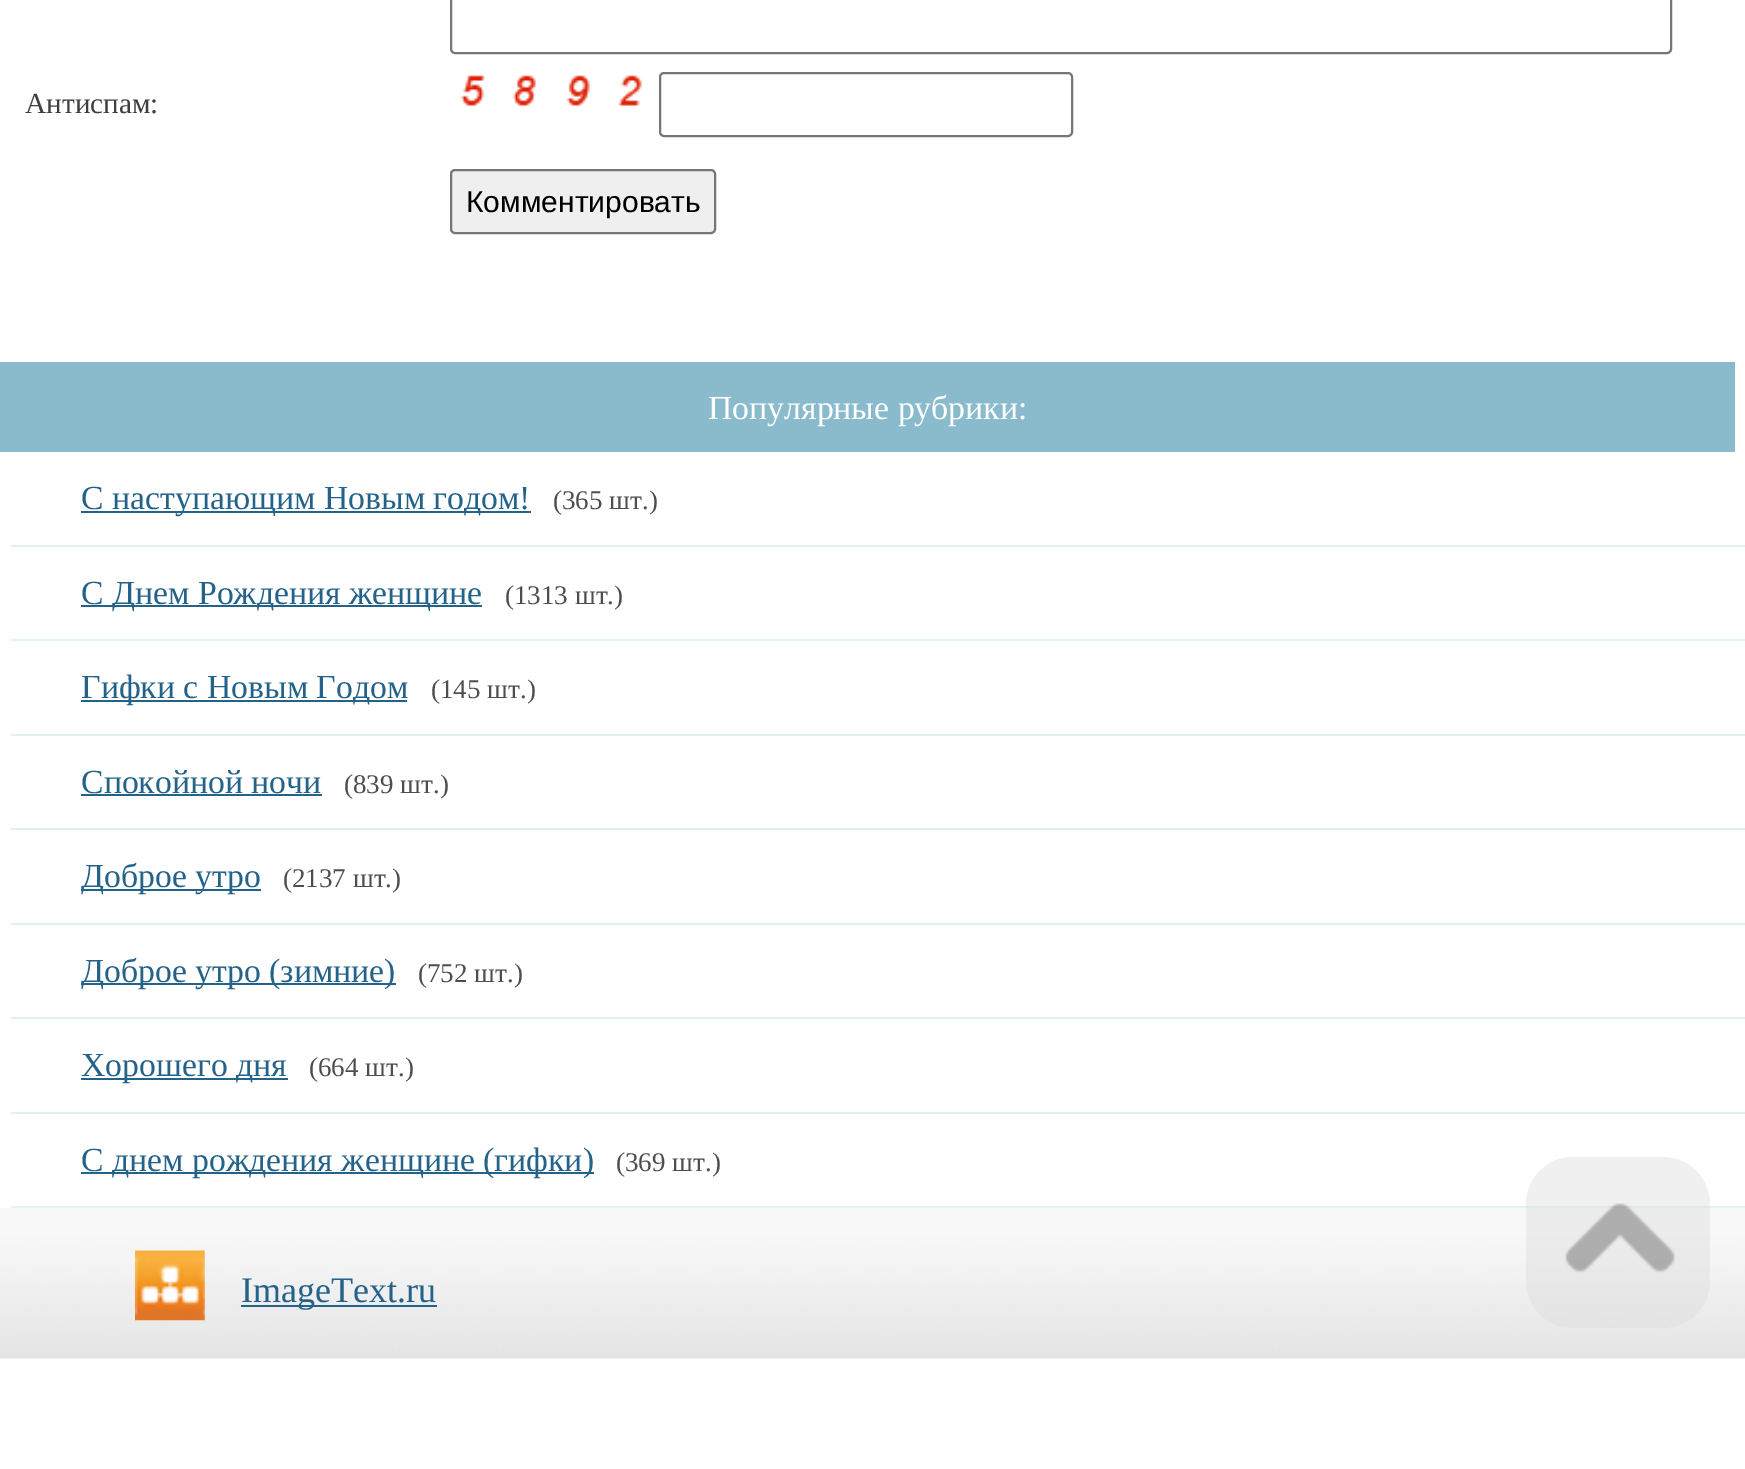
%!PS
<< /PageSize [1745 1469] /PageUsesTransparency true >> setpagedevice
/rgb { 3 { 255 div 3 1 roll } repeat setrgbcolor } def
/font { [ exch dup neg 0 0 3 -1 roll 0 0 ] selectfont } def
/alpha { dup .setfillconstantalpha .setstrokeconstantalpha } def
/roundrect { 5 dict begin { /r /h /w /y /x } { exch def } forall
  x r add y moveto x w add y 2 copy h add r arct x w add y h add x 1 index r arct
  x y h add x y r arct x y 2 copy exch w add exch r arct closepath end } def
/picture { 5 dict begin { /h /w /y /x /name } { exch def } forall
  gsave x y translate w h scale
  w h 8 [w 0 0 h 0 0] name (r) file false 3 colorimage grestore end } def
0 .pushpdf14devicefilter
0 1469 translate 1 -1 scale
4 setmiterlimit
255 255 255 rgb
0 0 1745 1469 rectfill
118 118 118 rgb
2 setlinewidth
451 -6 1220 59 4 roundrect stroke
(img/1.rgb) 460 75 25 31 picture
(img/2.rgb) 512 75 25 31 picture
(img/3.rgb) 566 75 25 31 picture
(img/4.rgb) 618 75 24 31 picture
660 73 412 63 4 roundrect stroke
239 239 239 rgb
451 170 264 63 4 roundrect gsave fill grestore
118 118 118 rgb
stroke
[
  [0 362 1735 90 137 187 205]
  [11 545 1734 2 222 242 243]
  [81 511 450 2 35 98 137]
  [11 639 1734 2 222 242 243]
  [81 605 401 2 35 98 137]
  [11 734 1734 2 222 242 243]
  [81 700 326 2 35 98 137]
  [11 828 1734 2 222 242 243]
  [81 794 241 2 35 98 137]
  [11 923 1734 2 222 242 243]
  [81 889 180 2 35 98 137]
  [11 1017 1734 2 222 242 243]
  [81 983 315 2 35 98 137]
  [11 1112 1734 2 222 242 243]
  [81 1078 207 2 35 98 137]
  [11 1206 1734 2 222 242 243]
  [81 1172 513 2 35 98 137]
] { aload pop rgb rectfill } forall
(img/5.rgb) 0 1207 1745 152 picture
(img/6.rgb) 135 1250 70 71 picture
241 1305 196 2 rectfill
0.4 alpha
218 218 218 rgb
1526 1157 184 171 47 roundrect fill
1 alpha
(img/7.rgb) 1565 1203 110 70 picture
/LiberationSerif-Regular 29.25 font
62 62 62 rgb
25 113 moveto (Антиспам:) show
/LiberationSans-Regular 30 font
0 0 0 rgb
466 212 moveto (Комментировать) show
/LiberationSerif-Regular 33.75 font
255 255 255 rgb
708 419 moveto (Популярные рубрики:) show
35 98 137 rgb
81 509 moveto (С наступающим Новым годом!) show
/LiberationSerif-Regular 27 font
77 77 77 rgb
553 509 moveto (\(365 шт.\)) show
/LiberationSerif-Regular 33.75 font
35 98 137 rgb
81 604 moveto (С Днем Рождения женщине) show
/LiberationSerif-Regular 27 font
77 77 77 rgb
505 604 moveto (\(1313 шт.\)) show
/LiberationSerif-Regular 33.75 font
35 98 137 rgb
81 698 moveto (Гифки с Новым Годом) show
/LiberationSerif-Regular 27 font
77 77 77 rgb
431 698 moveto (\(145 шт.\)) show
/LiberationSerif-Regular 33.75 font
35 98 137 rgb
81 793 moveto (Спокойной ночи) show
/LiberationSerif-Regular 27 font
77 77 77 rgb
344 793 moveto (\(839 шт.\)) show
/LiberationSerif-Regular 33.75 font
35 98 137 rgb
81 887 moveto (Доброе утро) show
/LiberationSerif-Regular 27 font
77 77 77 rgb
283 887 moveto (\(2137 шт.\)) show
/LiberationSerif-Regular 33.75 font
35 98 137 rgb
81 982 moveto (Доброе утро \(зимние\)) show
/LiberationSerif-Regular 27 font
77 77 77 rgb
418 982 moveto (\(752 шт.\)) show
/LiberationSerif-Regular 33.75 font
35 98 137 rgb
81 1076 moveto (Хорошего дня) show
/LiberationSerif-Regular 27 font
77 77 77 rgb
309 1076 moveto (\(664 шт.\)) show
/LiberationSerif-Regular 33.75 font
35 98 137 rgb
81 1171 moveto (С днем рождения женщине \(гифки\)) show
/LiberationSerif-Regular 27 font
77 77 77 rgb
616 1171 moveto (\(369 шт.\)) show
/LiberationSerif-Regular 36 font
35 98 137 rgb
241 1302 moveto (ImageText.ru) show
.poppdf14devicefilter showpage
